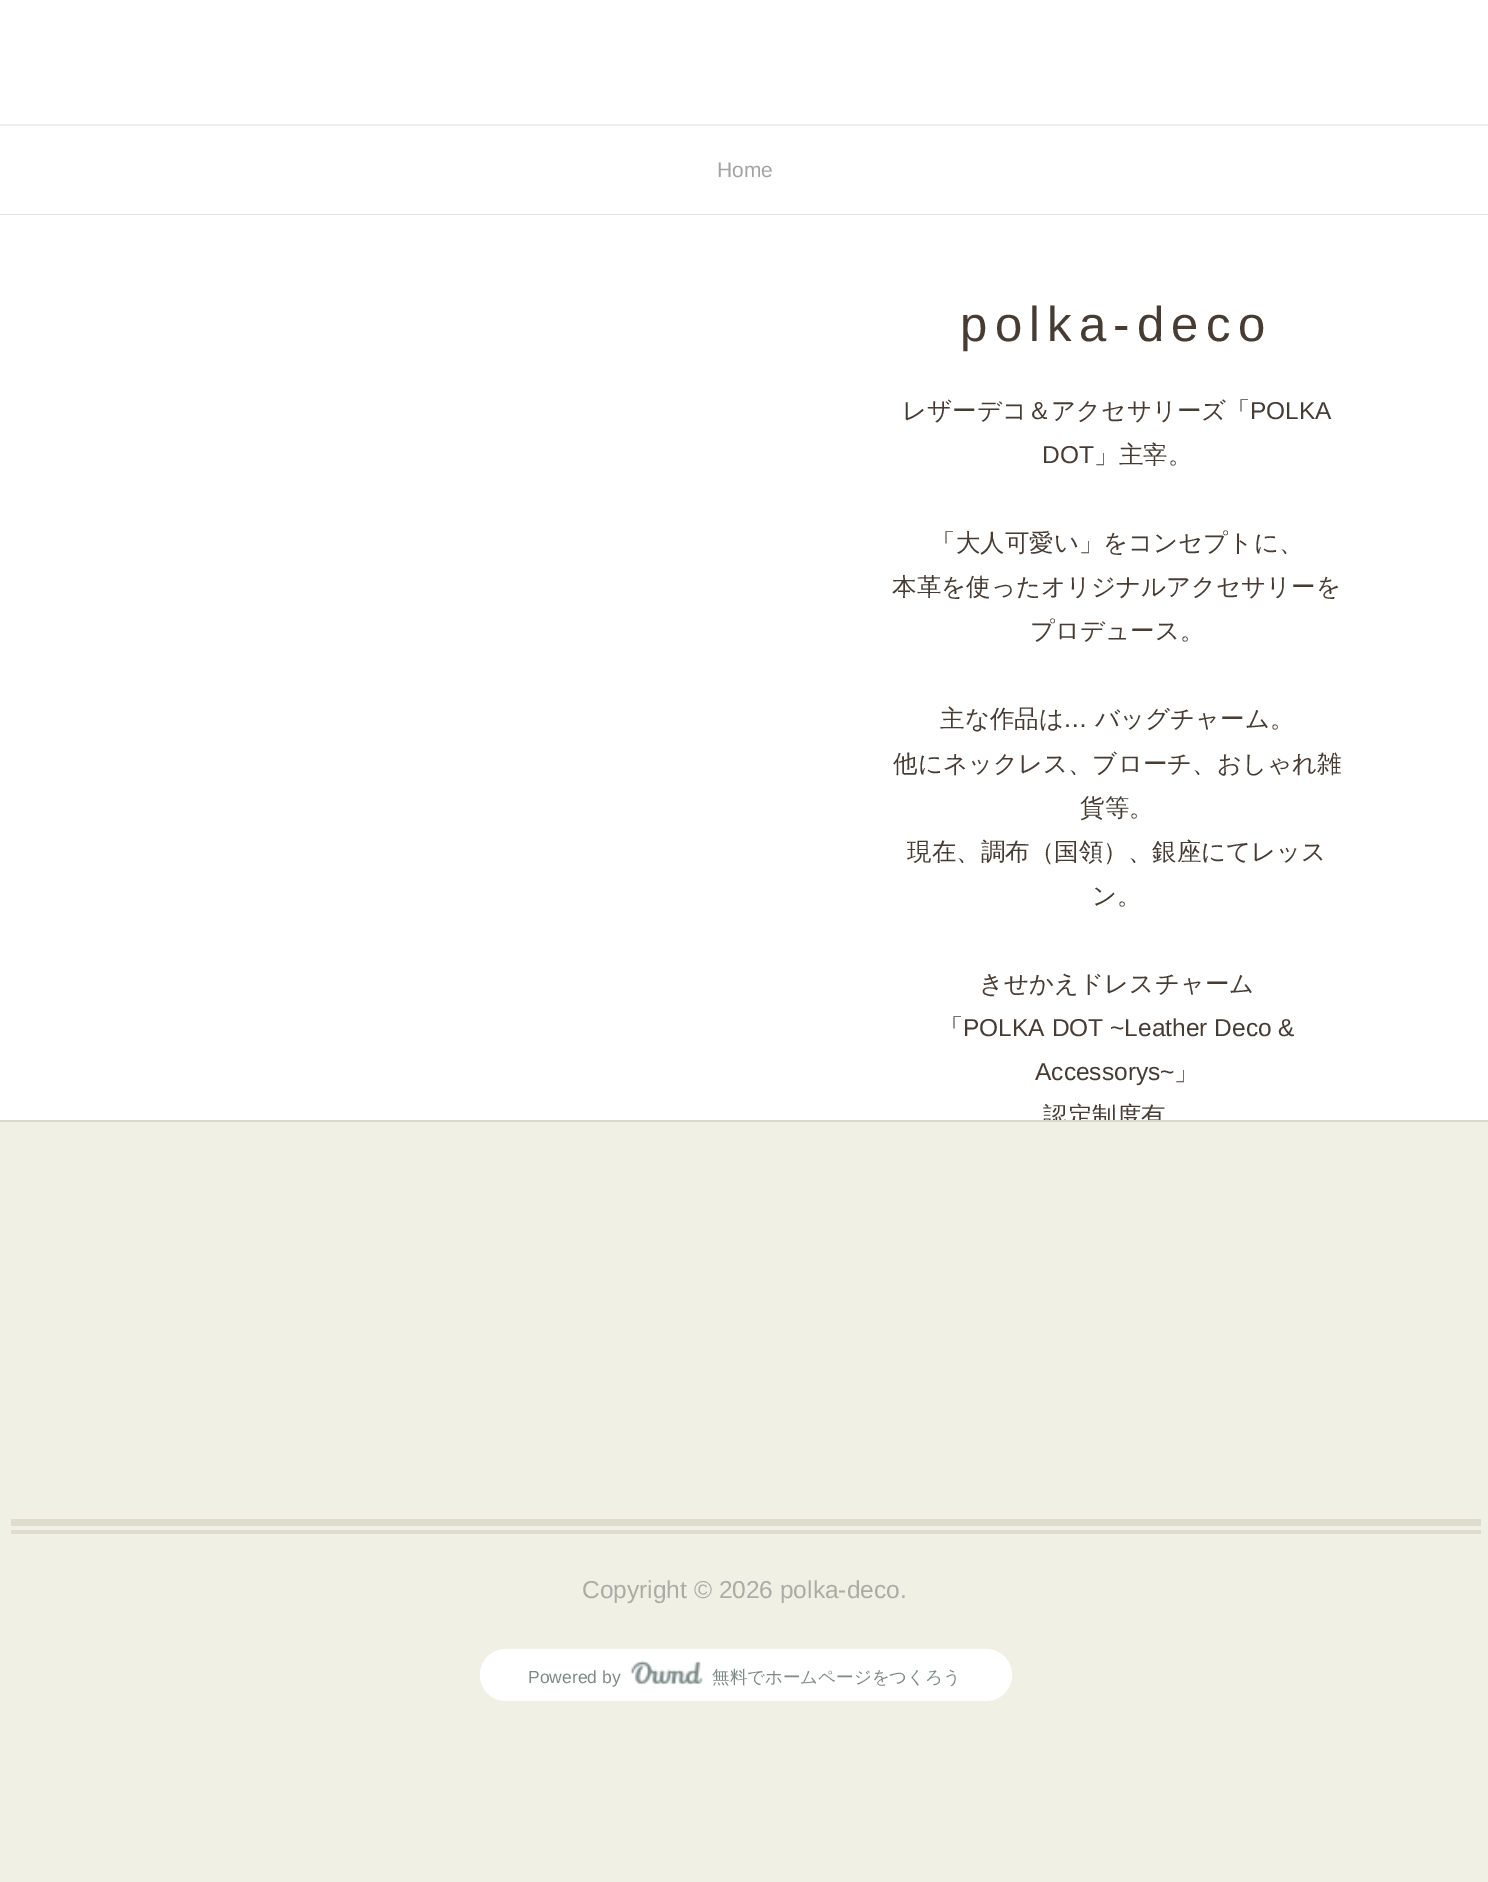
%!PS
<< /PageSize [1488 1882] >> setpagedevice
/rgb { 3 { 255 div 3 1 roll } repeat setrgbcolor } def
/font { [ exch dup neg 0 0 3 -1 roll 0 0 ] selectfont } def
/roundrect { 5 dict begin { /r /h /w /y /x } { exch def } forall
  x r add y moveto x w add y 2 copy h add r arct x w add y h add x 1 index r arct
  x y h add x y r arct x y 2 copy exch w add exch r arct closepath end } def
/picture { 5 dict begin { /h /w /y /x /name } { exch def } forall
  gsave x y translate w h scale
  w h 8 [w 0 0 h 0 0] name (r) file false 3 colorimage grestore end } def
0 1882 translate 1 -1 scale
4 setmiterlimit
241 240 229 rgb
0 0 1488 1882 rectfill
[
  [0 0 1488 124 255 255 255]
  [0 124 1488 2 238 238 238]
  [0 126 1488 88 255 255 255]
  [0 214 1488 1 230 230 230]
  [0 1120 1488 2 217 216 206]
  [0 215 1488 905 255 255 255]
  [11 1519 1470 7 222 221 205]
  [11 1530 1470 4 222 221 205]
] { aload pop rgb rectfill } forall
255 255 255 rgb
480 1649 532 52 26 roundrect fill
(img/1.rgb) 630 1660 73 25 picture
/LiberationSans-Regular 21 font
163 163 163 rgb
717 177 moveto (Home) show
/LiberationSans-Regular 49 font
71 60 52 rgb
960 341 moveto 7.25 0 (polka-deco) ashow
/WenQuanYiZenHei-Medium 24.5 font
902 419 moveto (レザーデコ＆アクセサリーズ「) show
/LiberationSans-Regular 24.5 font
1250 419 moveto (POLKA) show
1042 463 moveto (DOT) show
/WenQuanYiZenHei-Medium 24.5 font
[
  [(」主宰。) 1094 463]
  [(「大人可愛い」をコンセプトに、) 931 551]
  [(本革を使ったオリジナルアクセサリーを) 892 595]
  [(プロデュース。) 1030 639]
  [(主な作品は) 940 727]
] { aload pop moveto show } forall
/LiberationSans-Regular 24.5 font
1063 727 moveto (…) show
/WenQuanYiZenHei-Medium 24.5 font
[
  [(バッグチャーム。) 1095 727]
  [(他にネックレス、ブローチ、おしゃれ雑) 893 772]
  [(貨等。) 1080 816]
  [(現在、調布（国領）、銀座にてレッス) 907 860]
  [(ン。) 1092 904]
  [(きせかえドレスチャーム) 979 992]
  [(「) 939 1036]
] { aload pop moveto show } forall
/LiberationSans-Regular 24.5 font
963 1036 moveto (POLKA DOT ~Leather Deco &) show
1035 1080 moveto (Accessorys~) show
/WenQuanYiZenHei-Medium 24.5 font
1174 1080 moveto (」) show
gsave
0 215 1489 905 rectclip
1043 1124 moveto (認定制度有) show
grestore
/LiberationSans-Regular 24.5 font
172 171 166 rgb
582 1598 moveto (Copyright © 2026 polka-deco.) show
/LiberationSans-Regular 17.5 font
125 139 136 rgb
528 1683 moveto (Powered by) show
/WenQuanYiZenHei-Medium 17.5 font
712 1683 moveto (無料でホームページをつくろう) show
showpage
